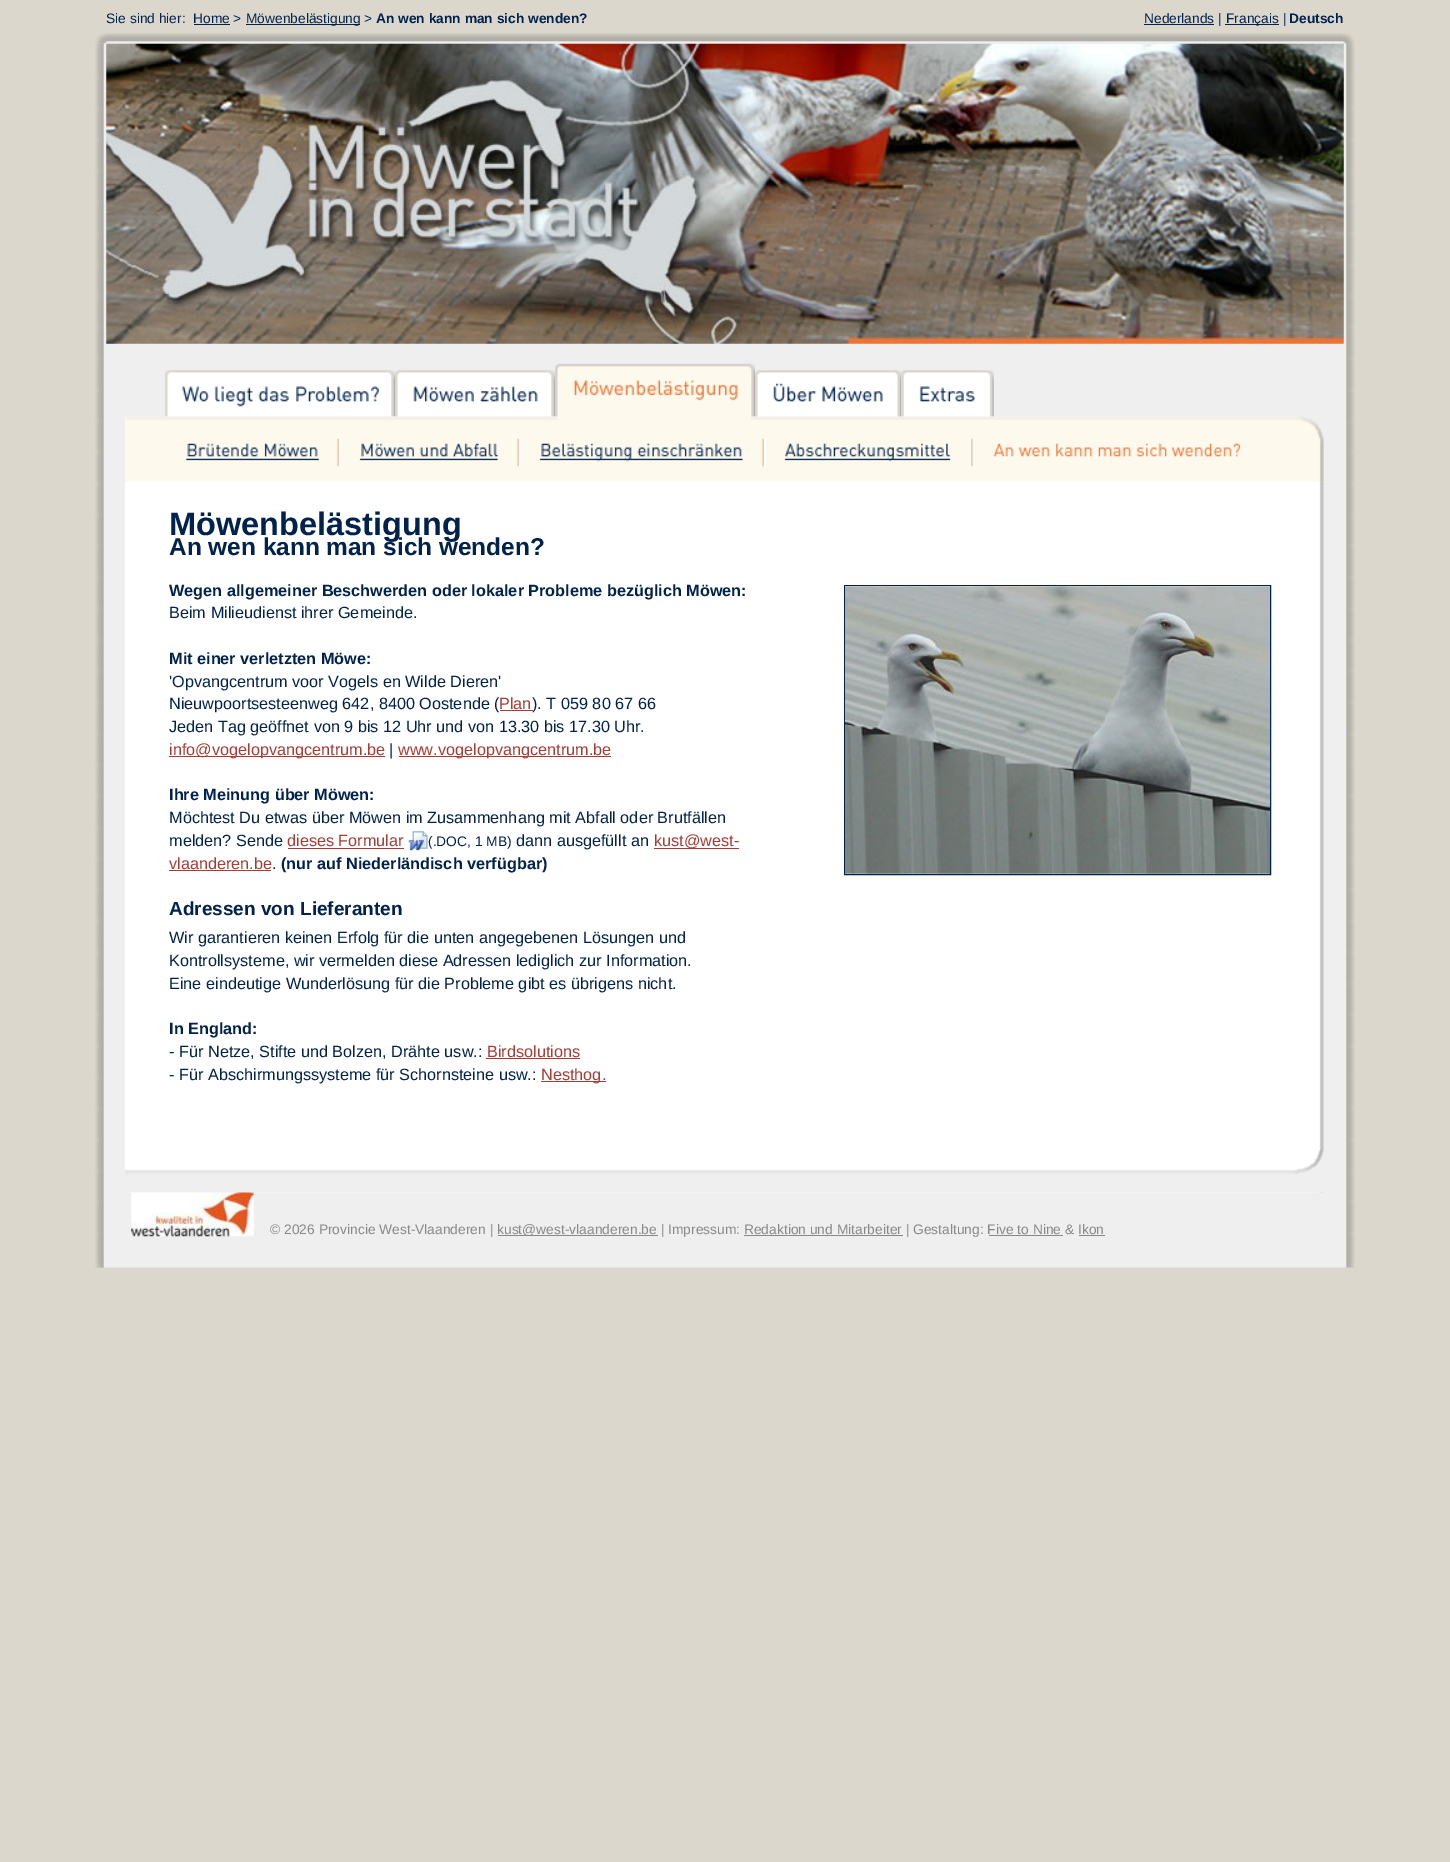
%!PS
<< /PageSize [1450 1862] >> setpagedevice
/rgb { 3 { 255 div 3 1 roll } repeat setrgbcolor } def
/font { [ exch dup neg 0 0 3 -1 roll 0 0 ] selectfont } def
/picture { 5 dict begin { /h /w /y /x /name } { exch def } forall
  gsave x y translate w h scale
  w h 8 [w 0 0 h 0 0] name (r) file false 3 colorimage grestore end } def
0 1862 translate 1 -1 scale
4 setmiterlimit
219 215 204 rgb
0 0 1450 1862 rectfill
(img/1.rgb) 95 33 1260 11 picture
[
  [194 24 36 1 0 34 77]
  [246 24 114 1 0 34 77]
  [1144 24 70 1 0 34 77]
  [1225 24 54 1 0 34 77]
] { aload pop rgb rectfill } forall
(img/2.rgb) 95 43 1260 1225 picture
(img/3.rgb) 106 43 1238 301 picture
(img/4.rgb) 125 416 1199 66 picture
(img/5.rgb) 165 370 230 47 picture
(img/6.rgb) 395 370 160 47 picture
(img/7.rgb) 555 363 200 57 picture
(img/8.rgb) 755 370 147 47 picture
(img/9.rgb) 901 370 93 47 picture
(img/10.rgb) 337 438 5 29 picture
(img/11.rgb) 186 443 133 18 picture
(img/10.rgb) 517 438 5 29 picture
(img/12.rgb) 359 443 139 18 picture
(img/10.rgb) 762 438 5 29 picture
(img/13.rgb) 539 443 204 19 picture
(img/14.rgb) 971 438 4 29 picture
(img/15.rgb) 784 443 167 19 picture
(img/16.rgb) 993 443 248 14 picture
(img/17.rgb) 125 481 1199 712 picture
[
  [500 710 33 1 168 59 52]
  [169 756 216 1 168 59 52]
  [399 756 212 1 168 59 52]
  [288 848 116 1 168 59 52]
] { aload pop rgb rectfill } forall
(img/18.rgb) 408 831 20 20 picture
[
  [654 848 85 1 168 59 52]
  [169 870 102 1 168 59 52]
  [486 1058 94 1 168 59 52]
  [541 1081 65 1 168 59 52]
] { aload pop rgb rectfill } forall
0 34 77 rgb
844.5 585.5 426 289 rectstroke
(img/19.rgb) 845 586 425 288 picture
(img/20.rgb) 125 1149 1199 44 picture
(img/21.rgb) 131 1192 123 45 picture
[
  [498 1235 160 1 136 136 136]
  [744 1235 159 1 136 136 136]
  [989 1235 74 1 136 136 136]
  [1079 1235 26 1 136 136 136]
] { aload pop rgb rectfill } forall
/LiberationSans-Regular 13.75 font
0 34 77 rgb
[
  [(Sie sind hier:) 106 23]
  [(Home >) 193 23]
  [(Möwenbelästigung >) 246 23]
] { aload pop moveto show } forall
/LiberationSans-Bold 13.75 font
376 23 moveto (An wen kann man sich wenden?) show
/LiberationSans-Regular 13.75 font
1144 23 moveto (Nederlands |) show
1226 23 moveto (Français |) show
/LiberationSans-Bold 13.75 font
1289 23 moveto (Deutsch) show
/LiberationSans-Bold 32.5 font
169 535 moveto (Möwenbelästigung) show
/LiberationSans-Bold 24.4 font
169 555 moveto (An wen kann man sich wenden?) show
/LiberationSans-Bold 16.25 font
169 596 moveto (Wegen allgemeiner Beschwerden oder lokaler Probleme bezüglich Möwen:) show
/LiberationSans-Regular 16.25 font
169 618 moveto (Beim Milieudienst ihrer Gemeinde.) show
/LiberationSans-Bold 16.25 font
169 664 moveto (Mit einer verletzten Möwe:) show
/LiberationSans-Regular 16.25 font
169 687 moveto ('Opvangcentrum voor Vogels en Wilde Dieren') show
169 709 moveto (Nieuwpoortsesteenweg 642, 8400 Oostende \() show
168 59 52 rgb
499 709 moveto (Plan) show
0 34 77 rgb
532 709 moveto (\). T 059 80 67 66) show
169 732 moveto (Jeden Tag geöffnet von 9 bis 12 Uhr und von 13.30 bis 17.30 Uhr.) show
168 59 52 rgb
169 755 moveto (info@vogelopvangcentrum.be) show
0 34 77 rgb
389 755 moveto (|) show
168 59 52 rgb
398 755 moveto (www.vogelopvangcentrum.be) show
/LiberationSans-Bold 16.25 font
0 34 77 rgb
169 800 moveto (Ihre Meinung über Möwen:) show
/LiberationSans-Regular 16.25 font
169 823 moveto (Möchtest Du etwas über Möwen im Zusammenhang mit Abfall oder Brutfällen) show
169 846 moveto (melden? Sende) show
168 59 52 rgb
287 846 moveto (dieses Formular) show
/LiberationSans-Regular 13.8 font
0 34 77 rgb
428 846 moveto (\(.DOC, 1 MB\)) show
/LiberationSans-Regular 16.25 font
516 846 moveto (dann ausgefüllt an) show
168 59 52 rgb
654 846 moveto (kust@west-) show
169 869 moveto (vlaanderen.be) show
0 34 77 rgb
272 869 moveto (.) show
/LiberationSans-Bold 16.25 font
281 869 moveto (\(nur auf Niederländisch verfügbar\)) show
/LiberationSans-Bold 19 font
169 915 moveto (Adressen von Lieferanten) show
/LiberationSans-Regular 16.25 font
[
  [(Wir garantieren keinen Erfolg für die unten angegebenen Lösungen und) 169 943]
  [(Kontrollsysteme, wir vermelden diese Adressen lediglich zur Information.) 169 966]
  [(Eine eindeutige Wunderlösung für die Probleme gibt es übrigens nicht.) 169 989]
] { aload pop moveto show } forall
/LiberationSans-Bold 16.25 font
169 1034 moveto (In England:) show
/LiberationSans-Regular 16.25 font
169 1057 moveto (- Für Netze, Stifte und Bolzen, Drähte usw.:) show
168 59 52 rgb
487 1057 moveto (Birdsolutions) show
0 34 77 rgb
169 1080 moveto (- Für Abschirmungssysteme für Schornsteine usw.:) show
168 59 52 rgb
541 1080 moveto (Nesthog.) show
/LiberationSans-Regular 13.8 font
136 136 136 rgb
270 1234 moveto (© 2026 Provincie West-Vlaanderen |) show
497 1234 moveto (kust@west-vlaanderen.be | Impressum: Redaktion und Mitarbeiter | Gestaltung: Five to Nine & Ikon) show
showpage
